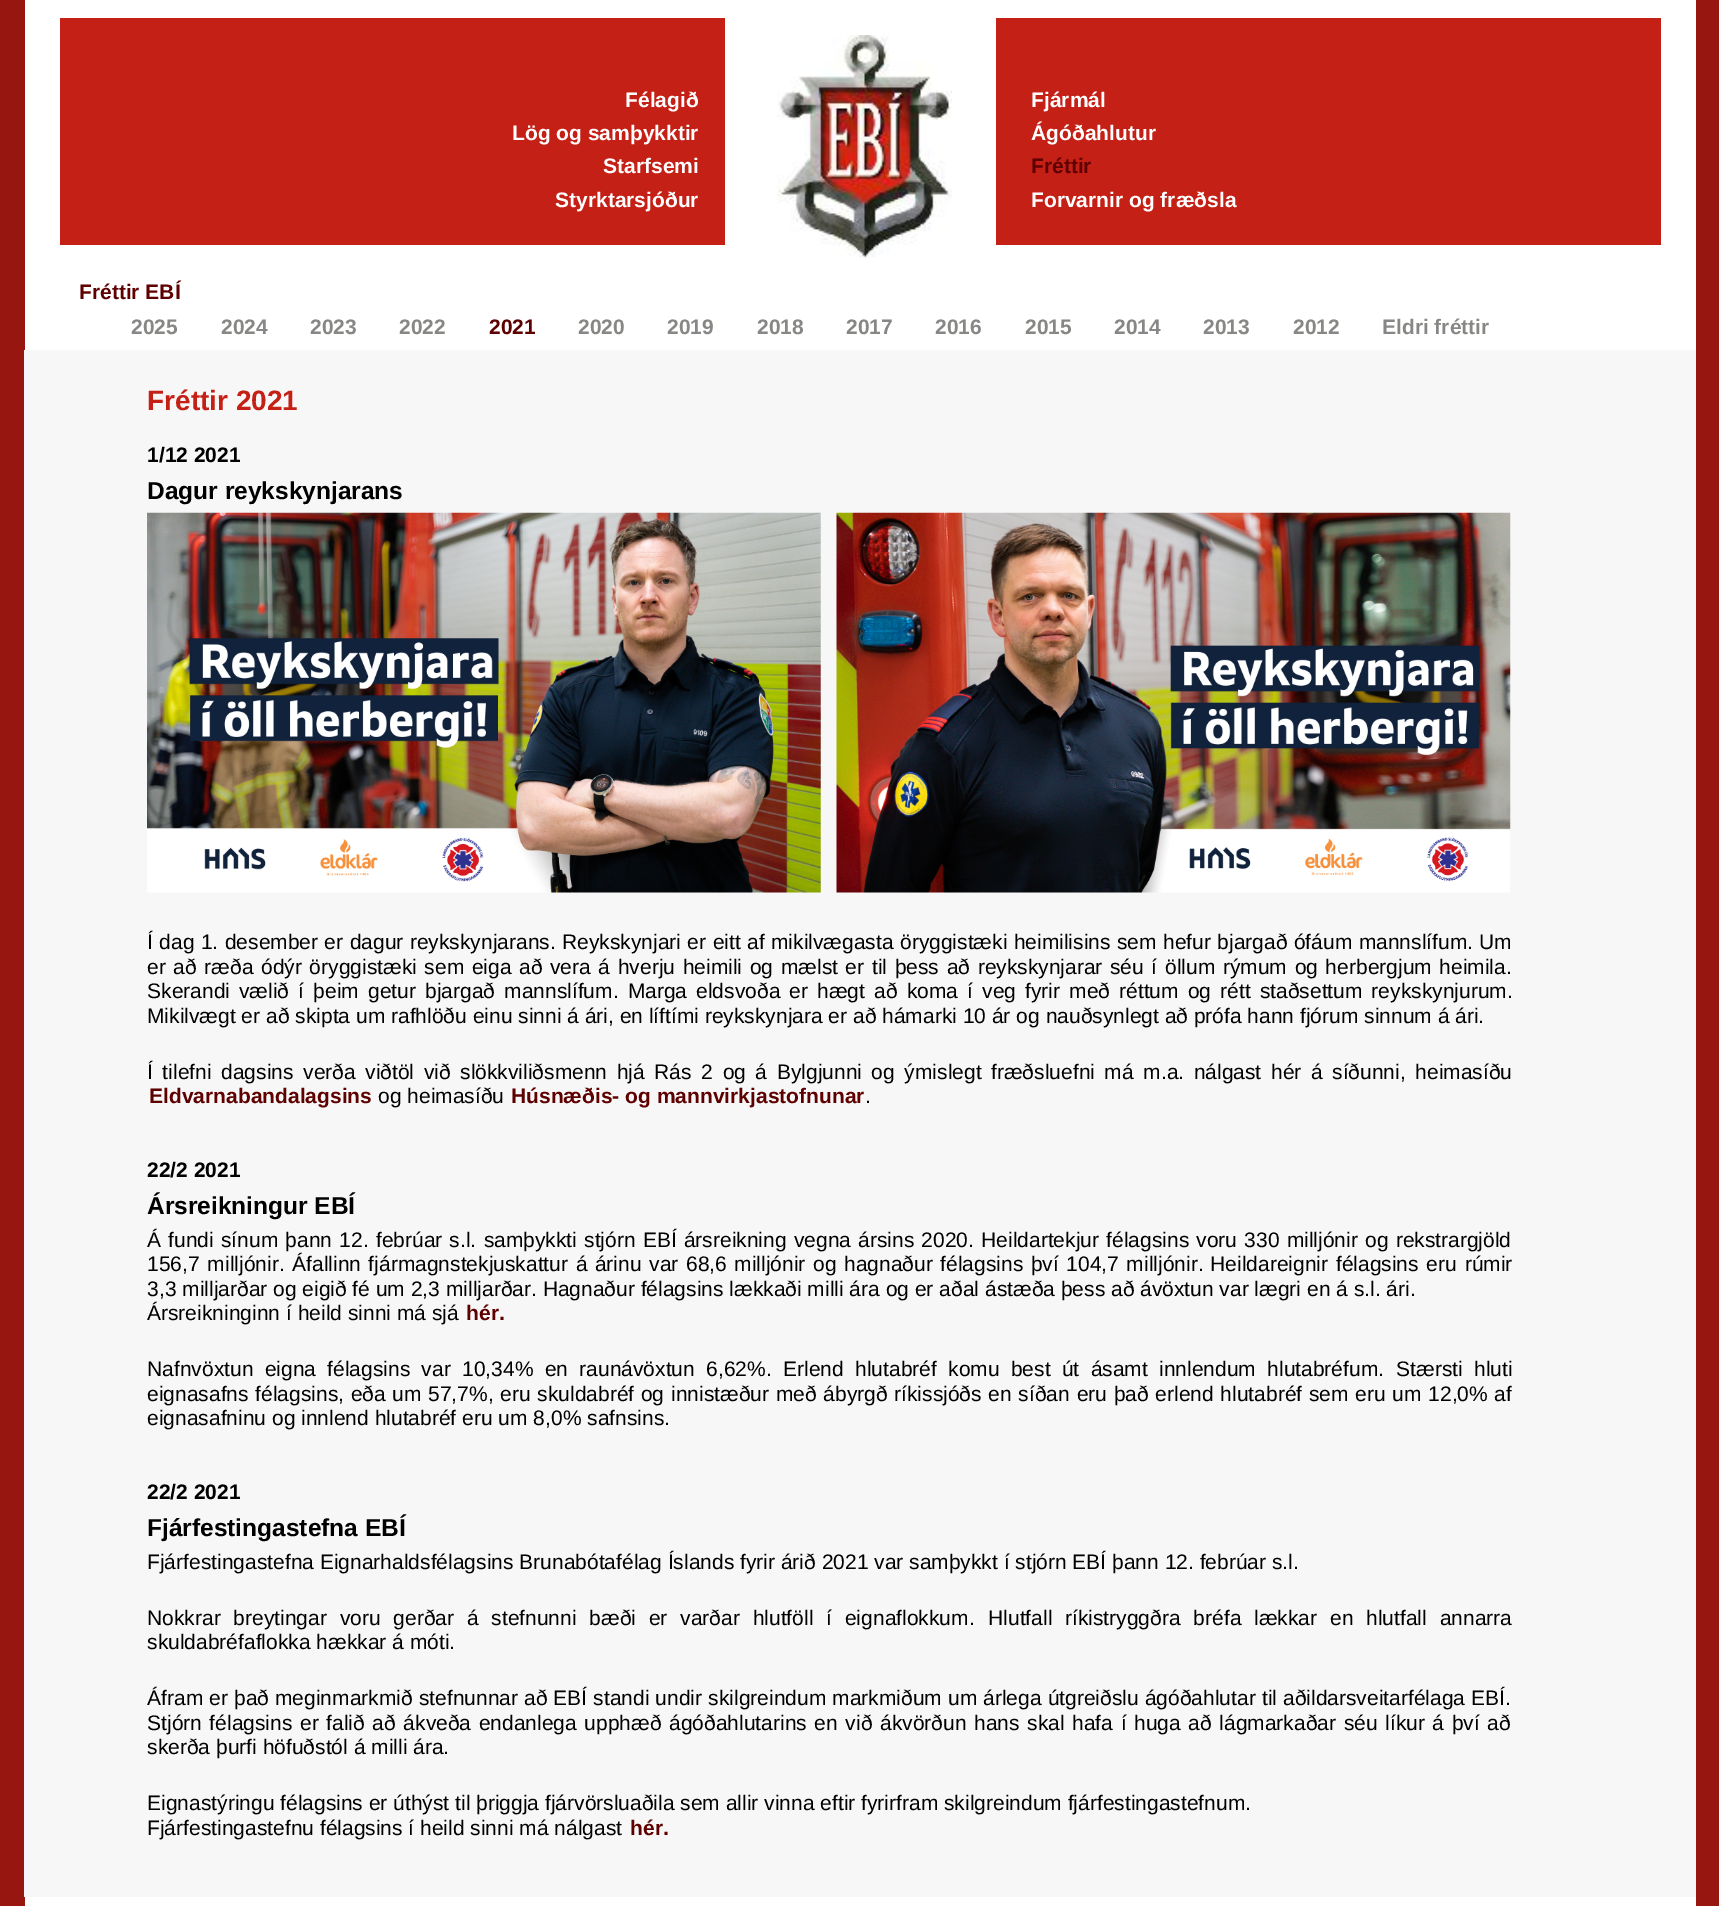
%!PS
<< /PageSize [1719 1906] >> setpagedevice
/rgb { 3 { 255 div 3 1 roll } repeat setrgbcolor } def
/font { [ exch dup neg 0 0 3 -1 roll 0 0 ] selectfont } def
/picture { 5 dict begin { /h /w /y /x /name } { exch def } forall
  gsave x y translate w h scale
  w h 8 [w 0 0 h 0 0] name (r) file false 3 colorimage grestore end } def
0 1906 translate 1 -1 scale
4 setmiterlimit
151 22 16 rgb
0 0 1719 1906 rectfill
255 255 255 rgb
25 0 1671 1906 rectfill
196 32 22 rgb
60 18 665 227 rectfill
(img/1.rgb) 777 35 175 223 picture
996 18 665 227 rectfill
247 247 247 rgb
24 350 1672 1547 rectfill
(img/2.rgb) 147 512 674 381 picture
(img/3.rgb) 836 512 675 381 picture
/LiberationSans-Bold 21 font
255 255 255 rgb
[
  [(Félagið) 625 107]
  [(Lög og samþykktir) 512 140]
  [(Starfsemi) 603 173]
  [(Styrktarsjóður) 555 207]
  [(Fjármál) 1031 107]
  [(Ágóðahlutur) 1031 140]
] { aload pop moveto show } forall
94 0 0 rgb
1031 173 moveto (Fréttir) show
255 255 255 rgb
1031 207 moveto (Forvarnir og fræðsla) show
94 0 0 rgb
79 299 moveto (Fréttir EBÍ) show
135 135 133 rgb
[
  [(2025) 131 334]
  [(2024) 221 334]
  [(2023) 310 334]
  [(2022) 399 334]
] { aload pop moveto show } forall
94 0 0 rgb
489 334 moveto (2021) show
135 135 133 rgb
[
  [(2020) 578 334]
  [(2019) 667 334]
  [(2018) 757 334]
  [(2017) 846 334]
  [(2016) 935 334]
  [(2015) 1025 334]
  [(2014) 1114 334]
  [(2013) 1203 334]
  [(2012) 1293 334]
  [(Eldri fréttir) 1382 334]
] { aload pop moveto show } forall
/LiberationSans-Bold 28 font
196 32 22 rgb
147 410 moveto (Fréttir 2021) show
/LiberationSans-Bold 21 font
0 0 0 rgb
147 462 moveto (1/12 2021) show
/LiberationSans-Bold 24.5 font
147 499 moveto (Dagur reykskynjarans) show
/LiberationSans-Regular 21 font
147 949 moveto 0.6 0 32 (Í dag 1. desember er dagur reykskynjarans.) widthshow
562 949 moveto 0.6 0 32 (Reykskynjari er eitt af mikilvægasta öryggistæki heimilisins sem hefur bjargað ófáum mannslífum. Um) widthshow
147 974 moveto 1.8 0 32 (er að ræða ódýr öryggistæki sem eiga að vera á hverju heimili og mælst er til þess að reykskynjarar séu í öllum rýmum og herbergjum heimila.) widthshow
147 998 moveto 3.3 0 32 (Skerandi vælið í þeim getur bjargað mannslífum. Marga eldsvoða er hægt að koma í veg fyrir með réttum og rétt staðsettum reykskynjurum.) widthshow
147 1023 moveto (Mikilvægt er að skipta um rafhlöðu einu sinni á ári, en líftími reykskynjara er að hámarki 10 ár og nauðsynlegt að prófa hann fjórum sinnum á ári.) show
147 1079 moveto 3.75 0 32 (Í tilefni dagsins) widthshow
303 1079 moveto 3.75 0 32 (verða viðtöl við slökkviliðsmenn hjá Rás 2 og á Bylgjunni og ýmislegt fræðsluefni má m.a. nálgast hér á síðunni, heimasíðu) widthshow
/LiberationSans-Bold 21 font
94 0 0 rgb
149 1103 moveto (Eldvarnabandalagsins) show
/LiberationSans-Regular 21 font
0 0 0 rgb
378 1103 moveto (og heimasíðu) show
/LiberationSans-Bold 21 font
94 0 0 rgb
511 1103 moveto (Húsnæðis- og mannvirkjastofnunar) show
/LiberationSans-Regular 21 font
0 0 0 rgb
865 1103 moveto (.) show
/LiberationSans-Bold 21 font
147 1177 moveto (22/2 2021) show
/LiberationSans-Bold 24.5 font
147 1214 moveto (Ársreikningur EBÍ) show
/LiberationSans-Regular 21 font
147 1247 moveto 1.4 0 32 (Á fundi sínum þann 12. febrúar s.l. samþykkti stjórn EBÍ ársreikning vegna ársins 2020. Heildartekjur félagsins voru 330 milljónir og rekstrargjöld) widthshow
147 1271 moveto 2 0 32 (156,7 milljónir.) widthshow
292 1271 moveto 1.75 0 32 (Áfallinn fjármagnstekjuskattur á árinu var 68,6 milljónir og hagnaður félagsins því 104,7 milljónir.) widthshow
1210 1271 moveto 2 0 32 (Heildareignir félagsins eru rúmir) widthshow
147 1296 moveto (3,3 milljarðar og eigið fé um 2,3 milljarðar. Hagnaður félagsins lækkaði milli ára og er aðal ástæða þess að ávöxtun var lægri en á s.l. ári.) show
147 1320 moveto (Ársreikninginn í heild sinni má sjá) show
/LiberationSans-Bold 21 font
94 0 0 rgb
466 1320 moveto (hér.) show
/LiberationSans-Regular 21 font
0 0 0 rgb
147 1376 moveto 5.5 0 32 (Nafnvöxtun eigna félagsins var) widthshow
462 1376 moveto 5.5 0 32 (10,34% en raunávöxtun 6,62%.) widthshow
783 1376 moveto 5.5 0 32 (Erlend hlutabréf komu best út ásamt innlendum hlutabréfum.) widthshow
1396 1376 moveto 5.5 0 32 (Stærsti hluti) widthshow
147 1401 moveto 0.9 0 32 (eignasafns félagsins, eða um) widthshow
428 1401 moveto 0.9 0 32 (57,7%, eru skuldabréf og innistæður með ábyrgð ríkissjóðs en síðan eru það erlend hlutabréf sem eru um 12,0% af) widthshow
147 1425 moveto (eignasafninu og innlend hlutabréf eru um 8,0% safnsins.) show
/LiberationSans-Bold 21 font
147 1499 moveto (22/2 2021) show
/LiberationSans-Bold 24.5 font
147 1536 moveto (Fjárfestingastefna EBÍ) show
/LiberationSans-Regular 21 font
147 1569 moveto (Fjárfestingastefna Eignarhaldsfélagsins Brunabótafélag Íslands fyrir árið 2021 var samþykkt í stjórn EBÍ þann 12. febrúar s.l.) show
147 1625 moveto 7 0 32 (Nokkrar breytingar voru gerðar á stefnunni bæði er varðar hlutföll í eignaflokkum.) widthshow
988 1625 moveto 7 0 32 (Hlutfall ríkistryggðra bréfa lækkar en hlutfall annarra) widthshow
147 1649 moveto (skuldabréfaflokka hækkar á móti.) show
147 1705 moveto 0.25 0 32 (Áfram er það meginmarkmið stefnunnar að EBÍ standi undir skilgreindum markmiðum um árlega útgreiðslu ágóðahlutar til aðildarsveitarfélaga EBÍ.) widthshow
147 1730 moveto 1.8 0 32 (Stjórn félagsins er falið að ákveða endanlega upphæð ágóðahlutarins en við ákvörðun hans skal hafa í huga að lágmarkaðar séu líkur á því að) widthshow
[
  [(skerða þurfi höfuðstól á milli ára.) 147 1754]
  [(Eignastýringu félagsins er úthýst til þriggja fjárvörsluaðila sem allir vinna eftir fyrirfram skilgreindum fjárfestingastefnum.) 147 1810]
  [(Fjárfestingastefnu félagsins í heild sinni má nálgast) 147 1835]
] { aload pop moveto show } forall
/LiberationSans-Bold 21 font
94 0 0 rgb
630 1835 moveto (hér.) show
showpage
